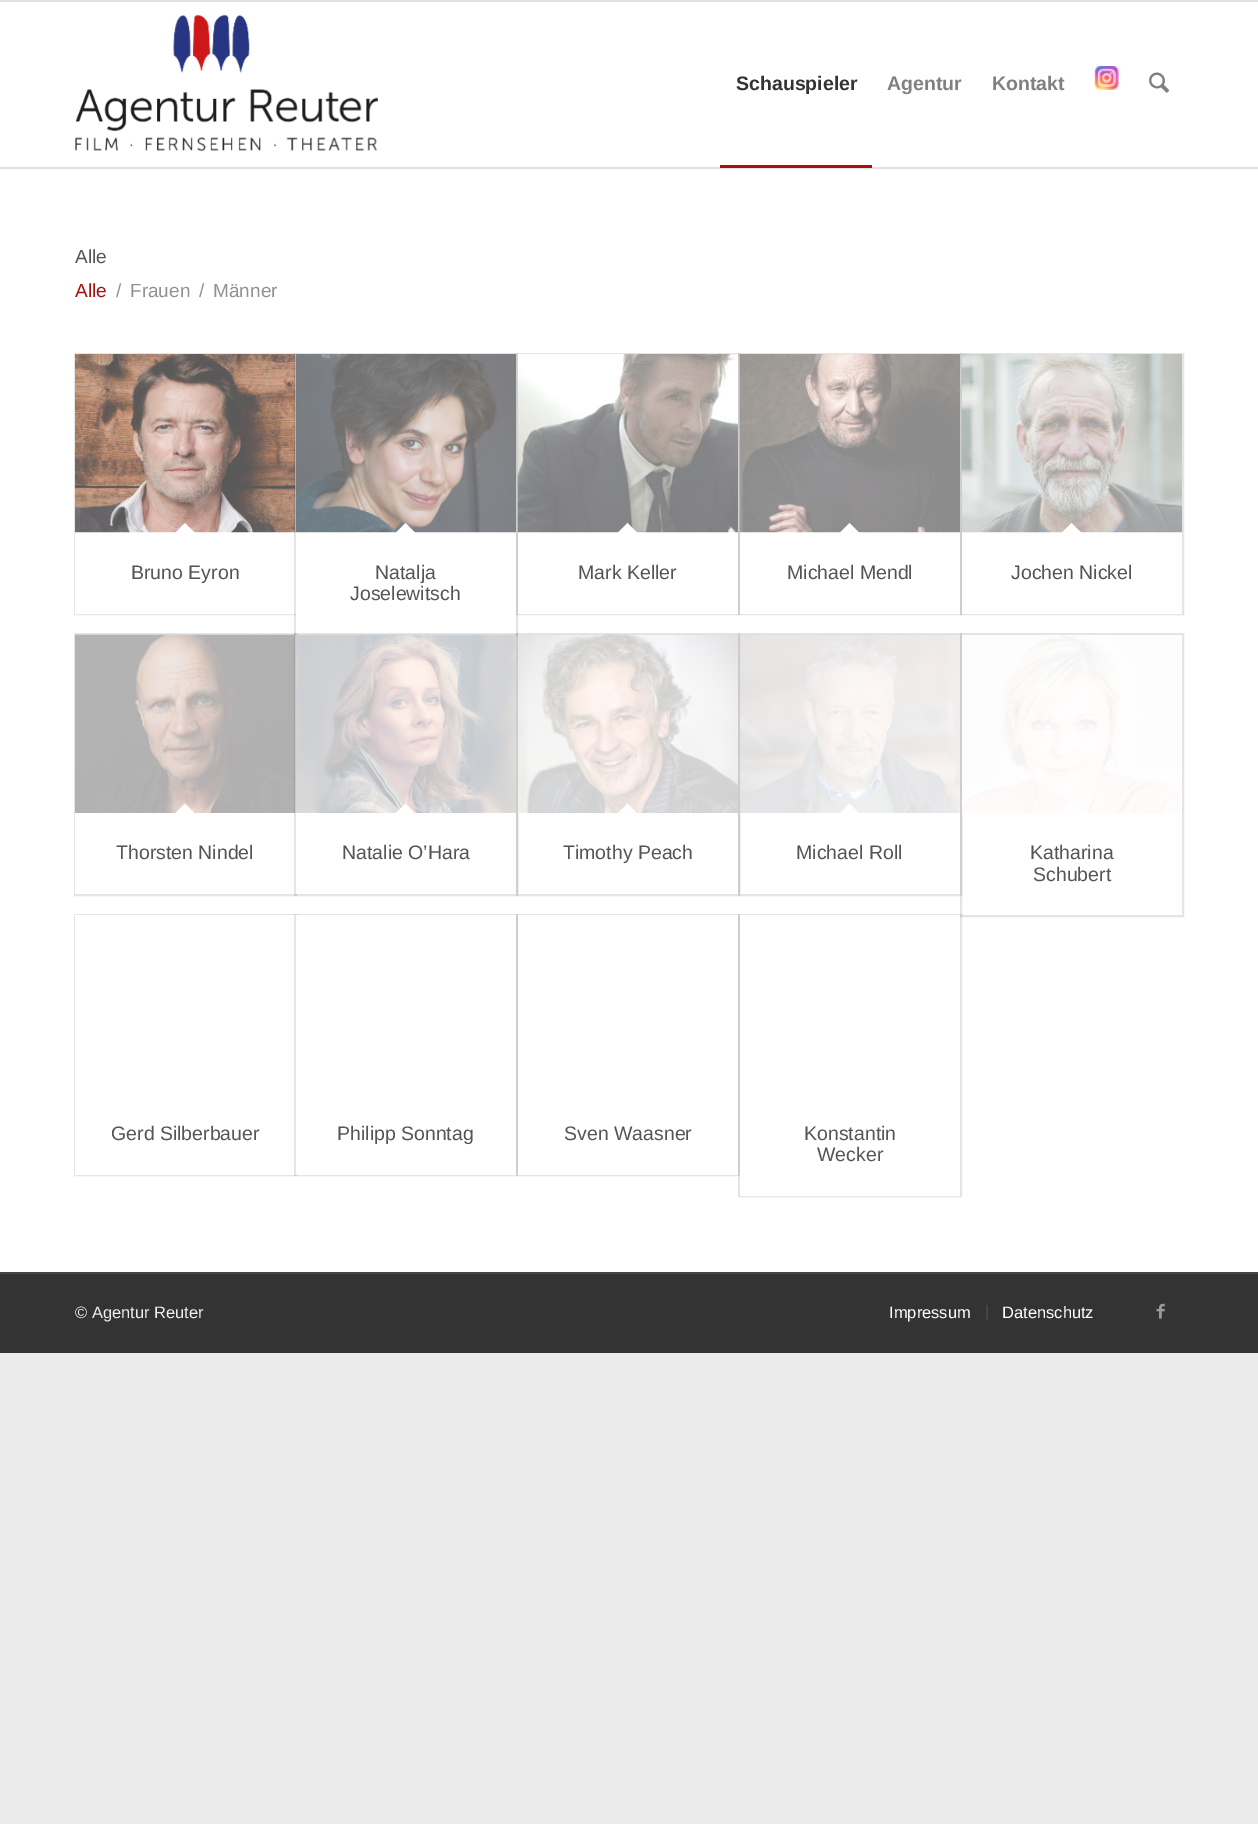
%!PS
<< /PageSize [1258 1824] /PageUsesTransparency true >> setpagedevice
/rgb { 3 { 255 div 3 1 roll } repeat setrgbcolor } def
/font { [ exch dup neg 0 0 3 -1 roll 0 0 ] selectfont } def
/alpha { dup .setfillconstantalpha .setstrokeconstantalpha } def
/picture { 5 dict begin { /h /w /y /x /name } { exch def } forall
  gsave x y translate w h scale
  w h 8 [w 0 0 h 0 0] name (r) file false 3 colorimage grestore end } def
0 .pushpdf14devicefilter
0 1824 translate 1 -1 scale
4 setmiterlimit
235 235 235 rgb
0 0 1258 1824 rectfill
[
  [0 0 1258 2 225 225 225]
  [0 2 1258 1270 255 255 255]
  [0 167 1258 2 225 225 225]
] { aload pop rgb rectfill } forall
(img/1.rgb) 75 14 303 138 picture
168 16 16 rgb
720 165 152 3 rectfill
(img/2.rgb) 1094 66 25 24 picture
(img/3.rgb) 1149 72 21 21 picture
230 230 230 rgb
2 setlinewidth
75 354 221 260 rectstroke
255 255 255 rgb
75 354 221 260 rectfill
(img/4.rgb) 75 354 221 179 picture
185 523 moveto 195.5 533.5 lineto 185 544.5 lineto 174.5 533.5 lineto closepath fill
0.1 alpha
0 0 0 rgb
295 354 222 281 rectstroke
1 alpha
255 255 255 rgb
296 354 220 281 rectfill
(img/5.rgb) 295 354 221 179 picture
405.5 523 moveto 416 533.5 lineto 405.5 544.5 lineto 395 533.5 lineto closepath fill
0.1 alpha
0 0 0 rgb
517 354 222 260 rectstroke
1 alpha
255 255 255 rgb
518 354 220 260 rectfill
(img/6.rgb) 517 354 221 179 picture
627.5 523 moveto 638 533.5 lineto 627.5 544.5 lineto 617 533.5 lineto closepath fill
0.1 alpha
0 0 0 rgb
739 354 222 260 rectstroke
1 alpha
255 255 255 rgb
740 354 220 260 rectfill
(img/7.rgb) 739 354 221 179 picture
849.5 523 moveto 860 533.5 lineto 849.5 544.5 lineto 839 533.5 lineto closepath fill
0.1 alpha
0 0 0 rgb
961 354 222 260 rectstroke
1 alpha
255 255 255 rgb
962 354 220 260 rectfill
(img/8.rgb) 961 354 221 179 picture
1071.5 523 moveto 1082 533.5 lineto 1071.5 544.5 lineto 1061 533.5 lineto closepath fill
0.1 alpha
0 0 0 rgb
75 634 221 261 rectstroke
1 alpha
255 255 255 rgb
75 635 221 259 rectfill
(img/9.rgb) 75 634 221 179 picture
185 803.5 moveto 195.5 814 lineto 185 825 lineto 174.5 814 lineto closepath fill
0.1 alpha
0 0 0 rgb
295 634 222 261 rectstroke
1 alpha
255 255 255 rgb
296 635 220 259 rectfill
(img/10.rgb) 295 634 221 179 picture
405.5 803.5 moveto 416 814 lineto 405.5 825 lineto 395 814 lineto closepath fill
0.1 alpha
0 0 0 rgb
517 634 222 261 rectstroke
1 alpha
(img/11.rgb) 517 634 221 179 picture
255 255 255 rgb
627.5 803.5 moveto 638 814 lineto 627.5 825 lineto 617 814 lineto closepath fill
0.1 alpha
0 0 0 rgb
739 634 222 261 rectstroke
1 alpha
(img/12.rgb) 739 634 221 179 picture
255 255 255 rgb
849.5 803.5 moveto 860 814 lineto 849.5 825 lineto 839 814 lineto closepath fill
0.1 alpha
0 0 0 rgb
961 634 222 282 rectstroke
1 alpha
(img/13.rgb) 962 635 219 178 picture
255 255 255 rgb
1071.5 803.5 moveto 1082 814 lineto 1071.5 825 lineto 1061 814 lineto closepath fill
230 230 230 rgb
75 915 221 260 rectstroke
255 255 255 rgb
75 915 221 260 rectfill
0.1 alpha
0 0 0 rgb
295 915 222 260 rectstroke
1 alpha
255 255 255 rgb
296 915 220 260 rectfill
0.1 alpha
0 0 0 rgb
517 915 222 260 rectstroke
1 alpha
255 255 255 rgb
518 915 220 260 rectfill
0.1 alpha
0 0 0 rgb
739 915 222 281 rectstroke
1 alpha
[
  [740 915 220 281 255 255 255]
  [0 1274 1258 79 51 51 51]
  [0 1272 1258 2 68 68 68]
  [986 1305 2 15 68 68 68]
] { aload pop rgb rectfill } forall
(img/14.rgb) 1156 1303 9 16 picture
/LiberationSans-Bold 19.5 font
51 51 51 rgb
736 90 moveto (Schauspieler) show
128 128 128 rgb
887 90 moveto (Agentur) show
992 90 moveto (Kontakt) show
/LiberationSans-Regular 19 font
85 85 85 rgb
75 263 moveto (Alle) show
168 16 16 rgb
75 297 moveto (Alle) show
145 145 145 rgb
[
  [(/) 116 297]
  [(Frauen) 130 297]
  [(/) 199 297]
  [(Männer) 213 297]
] { aload pop moveto show } forall
/LiberationSans-Regular 19.5 font
85 85 85 rgb
[
  [(Bruno Eyron) 131 579]
  [(Natalja) 375 579]
  [(Joselewitsch) 350 600]
  [(Mark Keller) 578 579]
  [(Michael Mendl) 787 579]
  [(Jochen Nickel) 1011 579]
  [(Thorsten Nindel) 116 859]
  [(Natalie O’Hara) 342 859]
  [(Timothy Peach) 563 859]
  [(Michael Roll) 796 859]
  [(Katharina) 1030 859]
  [(Schubert) 1033 881]
  [(Gerd Silberbauer) 111 1140]
  [(Philipp Sonntag) 337 1140]
  [(Sven Waasner) 564 1140]
  [(Konstantin) 804 1140]
  [(Wecker) 817 1161]
] { aload pop moveto show } forall
/LiberationSans-Regular 16.5 font
238 238 238 rgb
75 1318 moveto (© Agentur Reuter) show
255 255 255 rgb
889 1318 moveto (Impressum) show
1002 1318 moveto (Datenschutz) show
.poppdf14devicefilter showpage
